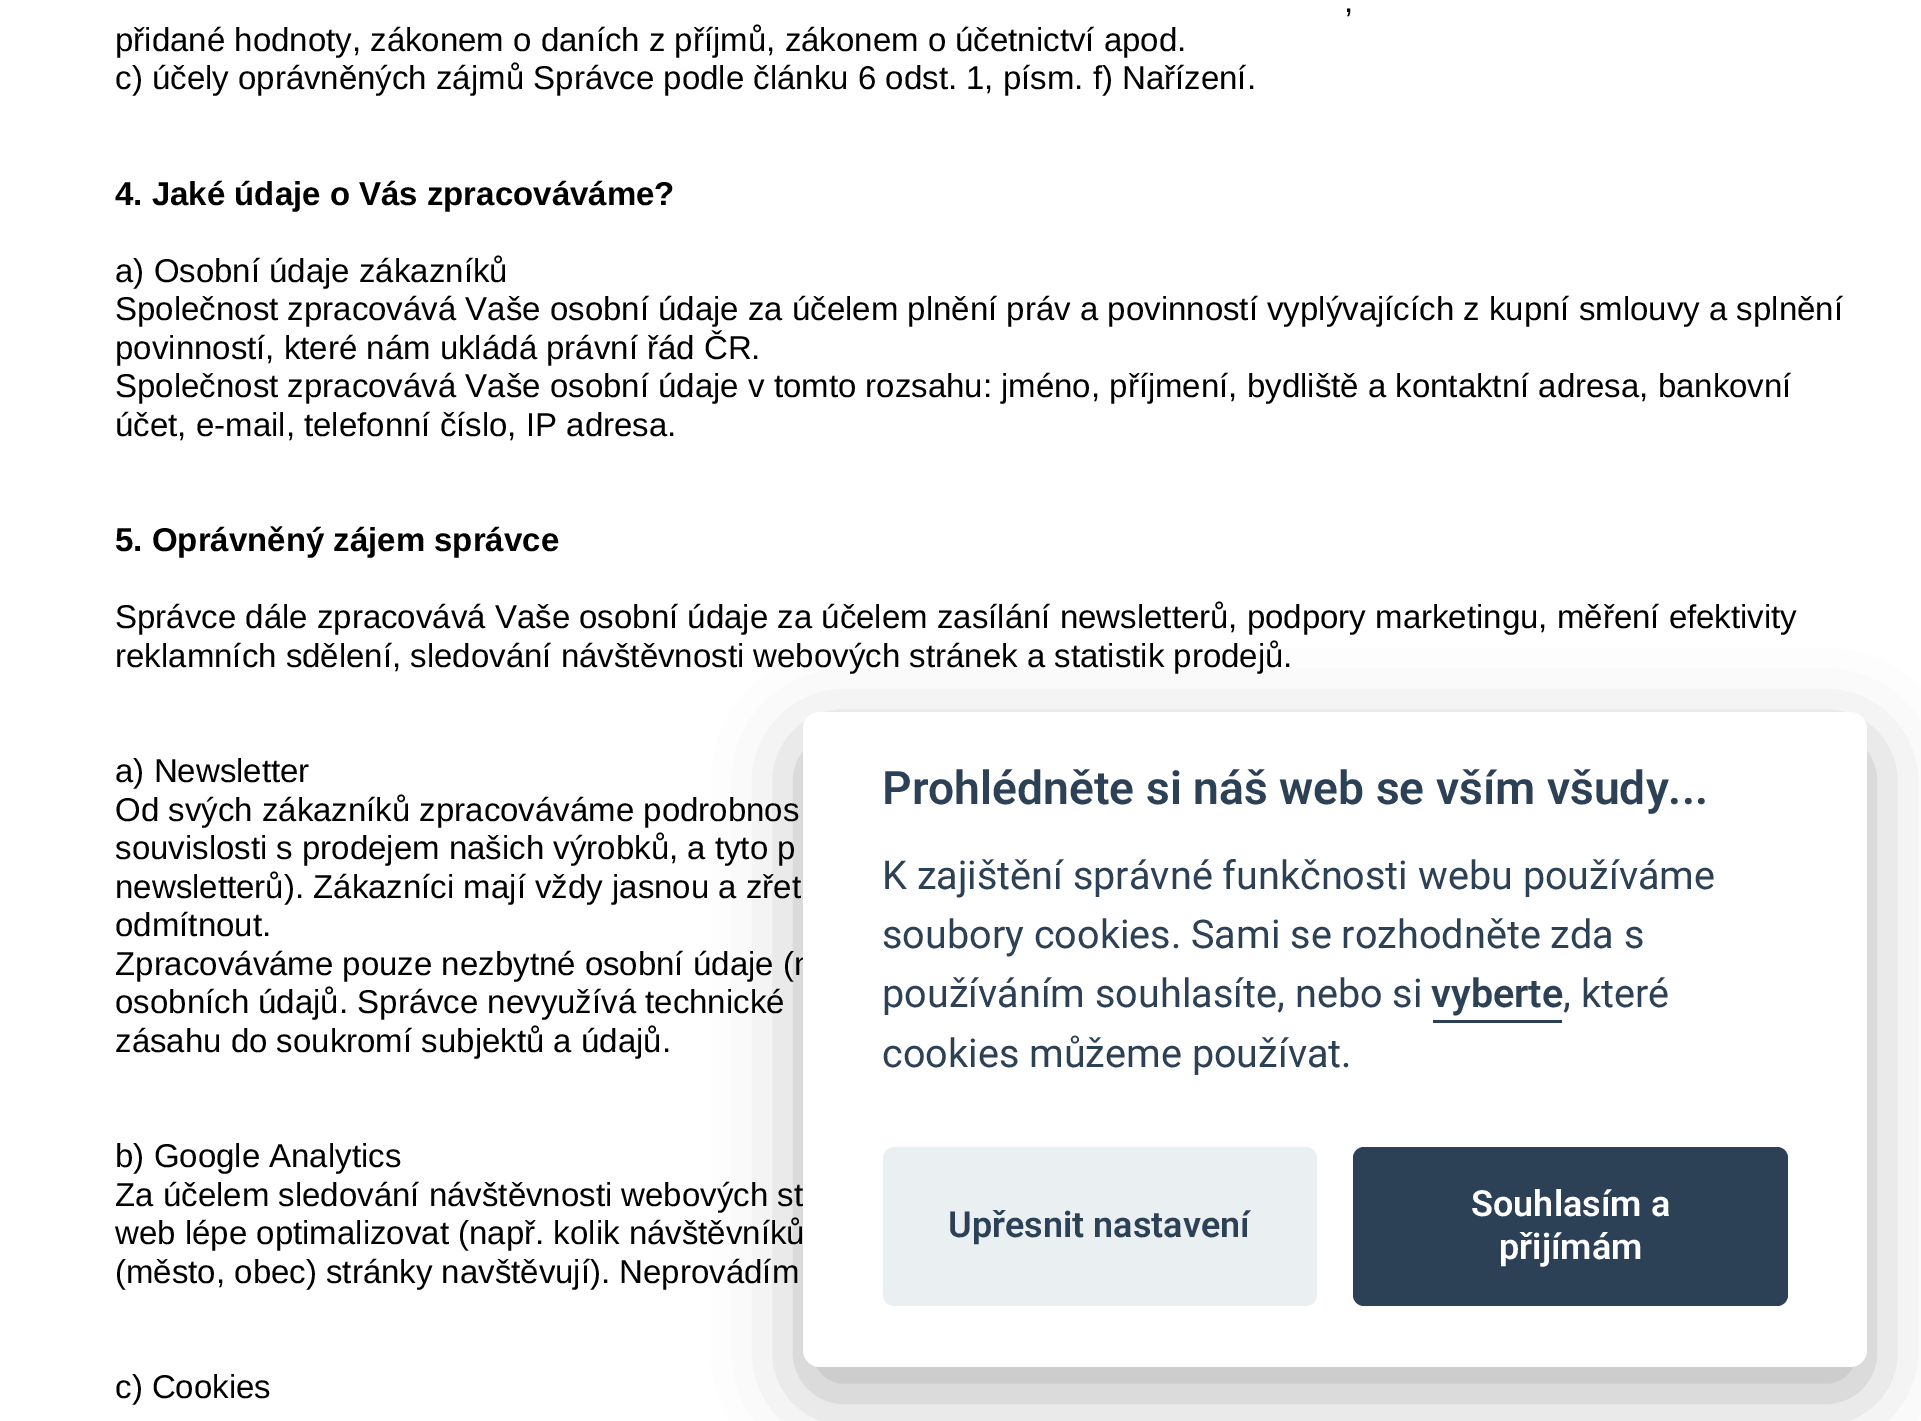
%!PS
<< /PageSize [1921 1421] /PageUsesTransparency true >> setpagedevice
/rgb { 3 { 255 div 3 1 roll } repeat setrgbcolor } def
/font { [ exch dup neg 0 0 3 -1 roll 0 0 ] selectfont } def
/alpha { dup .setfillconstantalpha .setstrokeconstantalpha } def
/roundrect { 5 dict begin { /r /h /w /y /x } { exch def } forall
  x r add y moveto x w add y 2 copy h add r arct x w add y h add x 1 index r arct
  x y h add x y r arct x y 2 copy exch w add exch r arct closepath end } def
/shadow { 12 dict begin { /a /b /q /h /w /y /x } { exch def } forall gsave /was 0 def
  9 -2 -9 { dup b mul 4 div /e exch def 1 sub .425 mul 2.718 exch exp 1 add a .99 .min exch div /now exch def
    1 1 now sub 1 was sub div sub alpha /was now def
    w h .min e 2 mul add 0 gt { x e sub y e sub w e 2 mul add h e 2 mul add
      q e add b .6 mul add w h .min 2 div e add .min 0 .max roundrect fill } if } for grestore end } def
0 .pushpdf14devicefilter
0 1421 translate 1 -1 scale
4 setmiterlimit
255 255 255 rgb
0 0 1921 1421 rectfill
2 2 3 rgb
803 740 1064 654 17 41 0.28 shadow
/LiberationSans-Regular 33 font
0 0 0 rgb
[
  [(,) 1344 12]
  [(přidané hodnoty, zákonem o daních z příjmů, zákonem o účetnictví apod.) 115 51]
  [(c\) účely oprávněných zájmů Správce podle článku 6 odst. 1, písm. f\) Nařízení.) 115 89]
] { aload pop moveto show } forall
/LiberationSans-Bold 33 font
115 205 moveto (4. Jaké údaje o Vás zpracováváme?) show
/LiberationSans-Regular 33 font
[
  [(a\) Osobní údaje zákazníků) 115 282]
  [(Společnost zpracovává Vaše osobní údaje za účelem plnění práv a povinností vyplývajících z kupní smlouvy a splnění) 115 320]
  [(povinností, které nám ukládá právní řád ČR.) 115 359]
  [(Společnost zpracovává Vaše osobní údaje v tomto rozsahu: jméno, příjmení, bydliště a kontaktní adresa, bankovní) 115 397]
  [(účet, e-mail, telefonní číslo, IP adresa.) 115 436]
] { aload pop moveto show } forall
/LiberationSans-Bold 33 font
115 551 moveto (5. Oprávněný zájem správce) show
/LiberationSans-Regular 33 font
[
  [(Správce dále zpracovává Vaše osobní údaje za účelem zasílání newsletterů, podpory marketingu, měření efektivity) 115 628]
  [(reklamních sdělení, sledování návštěvnosti webových stránek a statistik prodejů.) 115 667]
  [(a\) Newsletter) 115 782]
  [(Od svých zákazníků zpracováváme podrobnos) 115 821]
  [(souvislosti s prodejem našich výrobků, a tyto p) 115 859]
  [(newsletterů\). Zákazníci mají vždy jasnou a zřet) 115 898]
  [(odmítnout.) 115 936]
  [(Zpracováváme pouze nezbytné osobní údaje \(n) 115 975]
  [(osobních údajů. Správce nevyužívá technické) 115 1013]
  [(zásahu do soukromí subjektů a údajů.) 115 1052]
  [(b\) Google Analytics) 115 1167]
  [(Za účelem sledování návštěvnosti webových st) 115 1206]
  [(web lépe optimalizovat \(např. kolik návštěvníků) 115 1244]
  [(\(město, obec\) stránky navštěvují\). Neprovádím) 115 1283]
  [(c\) Cookies) 115 1398]
] { aload pop moveto show } forall
255 255 255 rgb
803 712 1064 655 17 roundrect fill
/Roboto-SemiBold 46.25 font
45 65 86 rgb
882 804 moveto (Prohlédněte si náš web se vším všudy...) show
/Roboto-Regular 39.6 font
[
  [(K zajištění správné funkčnosti webu používáme) 882 889]
  [(soubory cookies. Sami se rozhodněte zda s) 882 948]
  [(používáním souhlasíte, nebo si) 882 1007]
] { aload pop moveto show } forall
/Roboto-SemiBold 39.6 font
1431 1007 moveto (vyberte) show
1433 1020 129 3 rectfill
/Roboto-Regular 39.6 font
1563 1007 moveto (, které) show
882 1067 moveto (cookies můžeme používat.) show
234 239 242 rgb
883 1147 434 159 11 roundrect fill
/Roboto-SemiBold 36 font
45 65 86 rgb
948 1237 moveto (Upřesnit nastavení) show
1353 1147 435 159 11 roundrect fill
255 255 255 rgb
1471 1216 moveto (Souhlasím a) show
1499 1259 moveto (přijímám) show
.poppdf14devicefilter showpage
